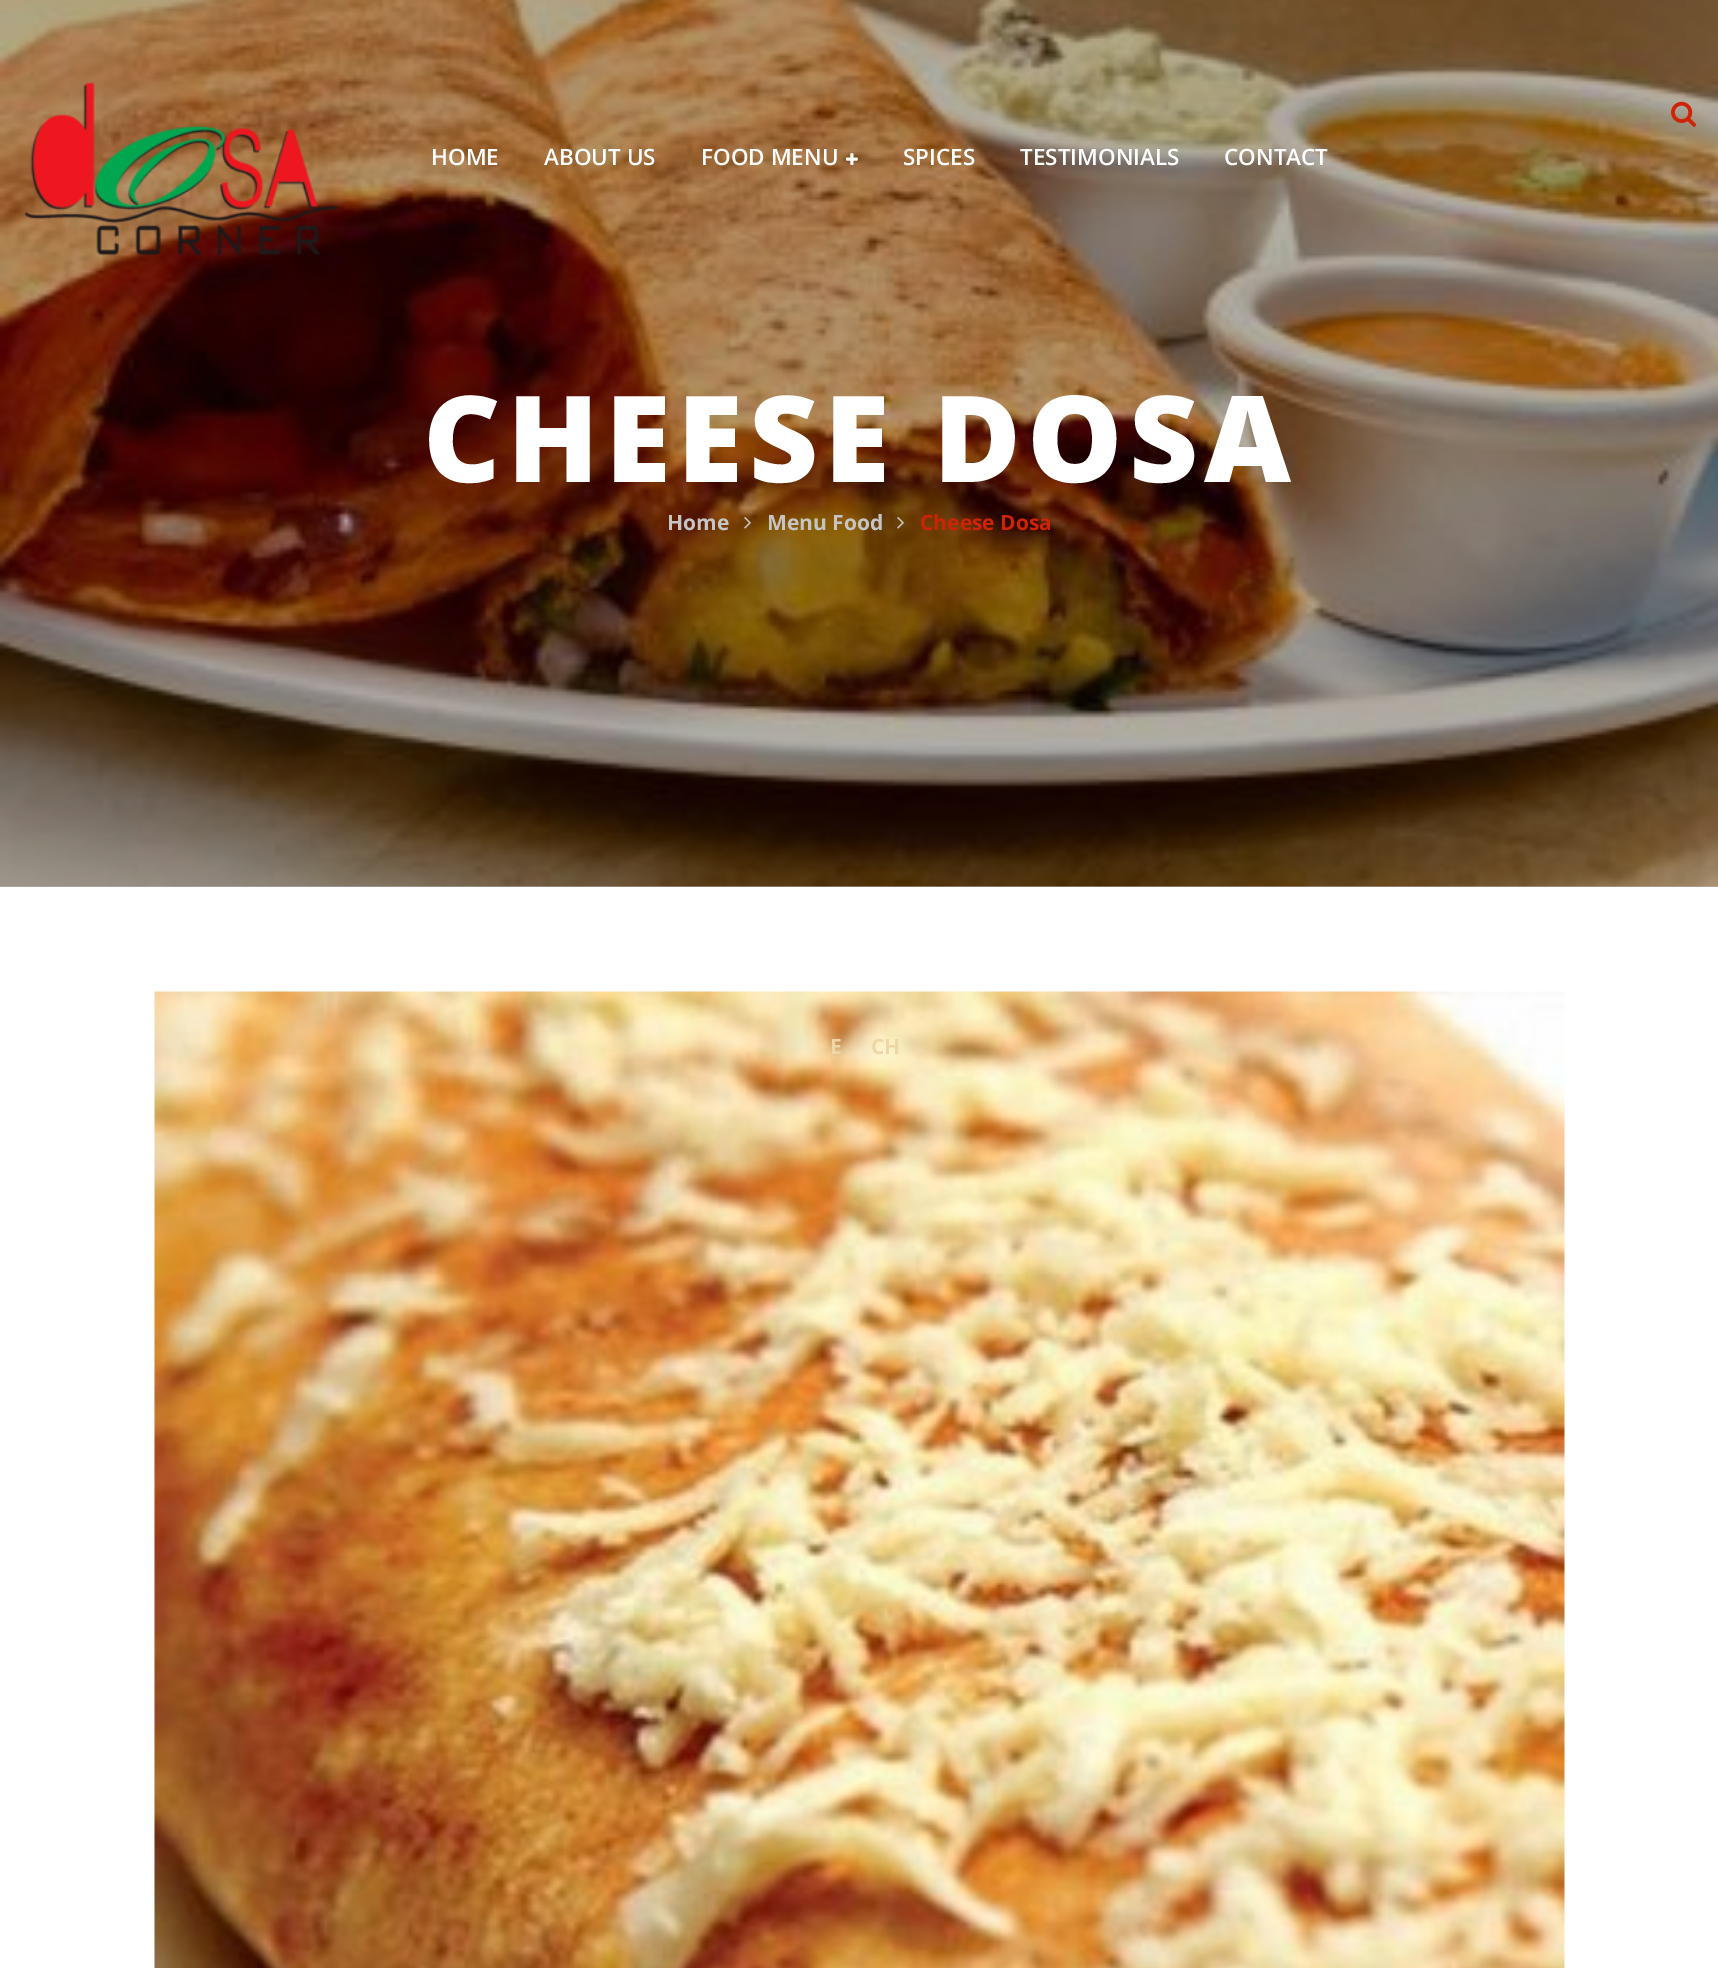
%!PS
<< /PageSize [1718 1968] >> setpagedevice
/rgb { 3 { 255 div 3 1 roll } repeat setrgbcolor } def
/font { [ exch dup neg 0 0 3 -1 roll 0 0 ] selectfont } def
/picture { 5 dict begin { /h /w /y /x /name } { exch def } forall
  gsave x y translate w h scale
  w h 8 [w 0 0 h 0 0] name (r) file false 3 colorimage grestore end } def
0 1968 translate 1 -1 scale
4 setmiterlimit
255 255 255 rgb
0 0 1718 1968 rectfill
179 179 179 rgb
0 886 1718 1 rectfill
(img/4.rgb) 0 0 1718 887 picture
(img/1.rgb) 23 82 315 174 picture
(img/2.rgb) 1671 101 25 26 picture
(img/3.rgb) 846 153 12 12 picture
(img/5.rgb) 744 517 7 12 picture
(img/6.rgb) 897 517 7 12 picture
(img/7.rgb) 154 991 1411 977 picture
/OpenSans-SemiBold 22.5 font
255 255 255 rgb
[
  [(HOME) 431 165]
  [(ABOUT US) 544 165]
  [(FOOD MENU) 701 165]
  [(SPICES) 903 165]
  [(TESTIMONIALS) 1020 165]
  [(CONTACT) 1224 165]
] { aload pop moveto show } forall
/OpenSans-ExtraBold 120 font
423 482 moveto 6 0 (CHEESE DOSA) ashow
/OpenSans-Bold 21 font
197 197 197 rgb
667 530 moveto (Home) show
767 530 moveto (Menu Food) show
206 35 5 rgb
920 530 moveto (Cheese Dosa) show
239 214 166 rgb
830 1054 moveto (E) show
871 1054 moveto (CH) show
showpage
